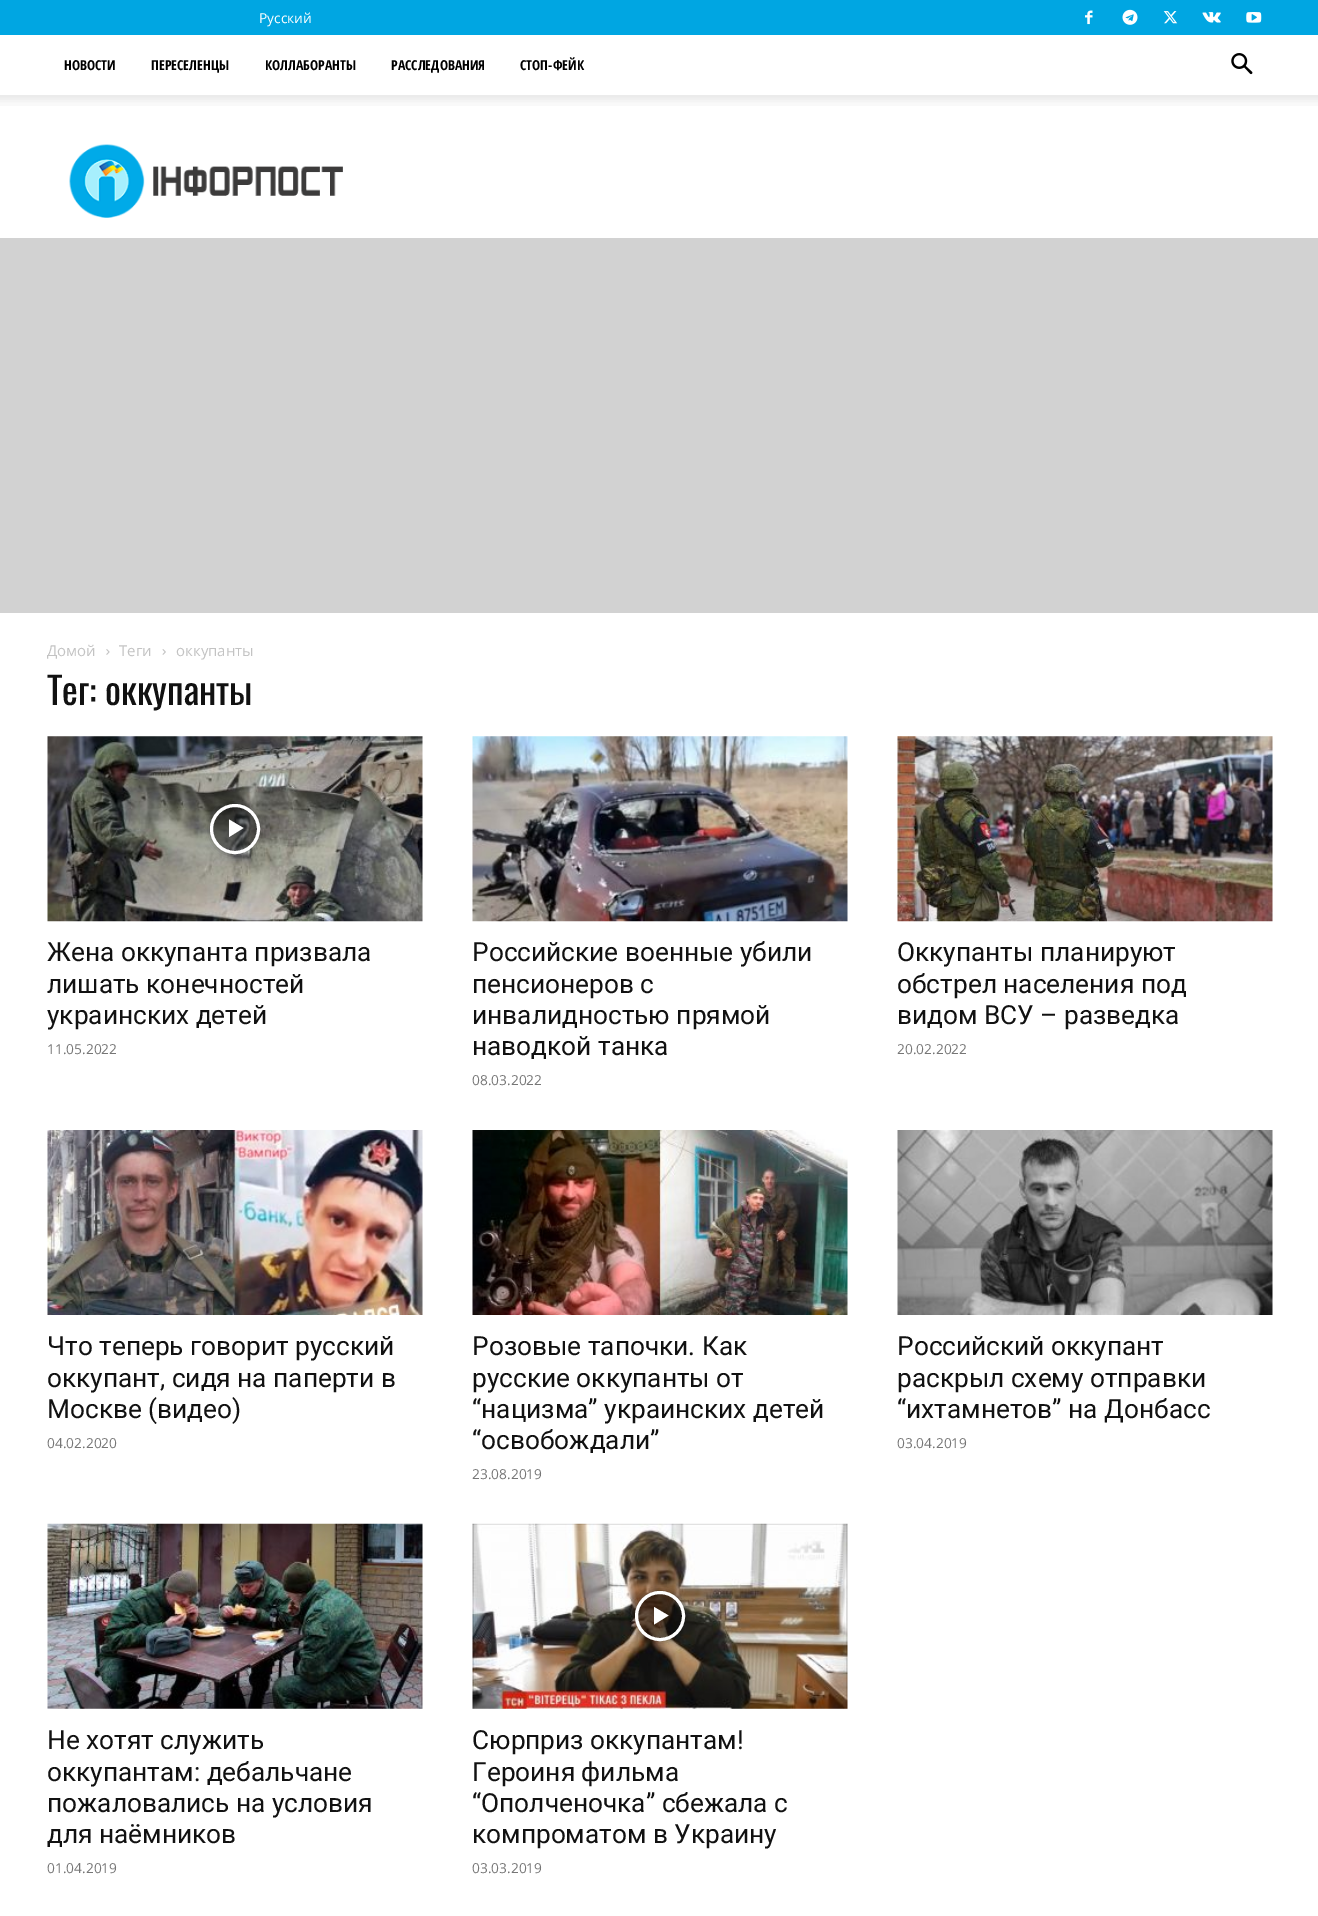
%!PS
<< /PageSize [1318 1916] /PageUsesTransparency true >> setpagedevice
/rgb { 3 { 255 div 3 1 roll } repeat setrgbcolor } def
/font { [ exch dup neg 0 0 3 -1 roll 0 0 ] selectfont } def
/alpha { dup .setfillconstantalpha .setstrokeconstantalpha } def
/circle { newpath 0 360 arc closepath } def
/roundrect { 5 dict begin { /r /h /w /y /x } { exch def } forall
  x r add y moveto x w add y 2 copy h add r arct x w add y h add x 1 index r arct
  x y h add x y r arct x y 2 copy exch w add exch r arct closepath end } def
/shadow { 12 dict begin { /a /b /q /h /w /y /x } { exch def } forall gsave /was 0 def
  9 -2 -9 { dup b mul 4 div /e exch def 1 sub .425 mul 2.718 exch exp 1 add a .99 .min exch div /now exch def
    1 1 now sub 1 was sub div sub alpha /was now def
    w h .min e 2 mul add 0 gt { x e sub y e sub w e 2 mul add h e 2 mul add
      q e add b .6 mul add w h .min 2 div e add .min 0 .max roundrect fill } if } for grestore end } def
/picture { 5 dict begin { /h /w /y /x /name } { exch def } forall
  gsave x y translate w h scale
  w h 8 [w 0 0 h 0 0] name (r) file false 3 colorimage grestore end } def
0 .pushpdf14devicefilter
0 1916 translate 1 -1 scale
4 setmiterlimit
210 210 210 rgb
0 0 1318 1916 rectfill
0 166 226 rgb
0 0 1318 35 rectfill
(img/1.rgb) 1085 10 8 15 picture
(img/2.rgb) 1122 9 16 16 picture
(img/3.rgb) 1163 11 15 13 picture
(img/4.rgb) 1202 12 19 11 picture
(img/5.rgb) 1246 12 16 11 picture
255 255 255 rgb
0 35 1318 203 rectfill
(img/6.rgb) 69 144 274 74 picture
(img/7.rgb) 1231 53 22 22 picture
(img/8.rgb) 0 95 1318 11 picture
0 613 1318 1303 rectfill
(img/9.rgb) 106 649 4 6 picture
(img/10.rgb) 162 649 4 6 picture
(img/11.rgb) 47 736 376 186 picture
gsave
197 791 moveto 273 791 lineto 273 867 lineto 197 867 lineto closepath 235 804 moveto 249 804 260 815 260 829 curveto 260 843 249 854 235 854 curveto 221 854 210 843 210 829 curveto 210 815 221 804 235 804 curveto closepath eoclip newpath
0 0 0 rgb
210 804 50 50 25 4 0.4 shadow
grestore
0.48 alpha
0 0 0 rgb
235 829 23.5 circle fill
1 alpha
255 255 255 rgb
3 setlinewidth
235 829 23.5 circle stroke
229 819.5 moveto 229 837 lineto 243.5 828 lineto closepath fill
(img/12.rgb) 472 736 376 186 picture
(img/13.rgb) 897 736 376 186 picture
(img/14.rgb) 47 1130 376 185 picture
(img/15.rgb) 472 1130 376 185 picture
(img/16.rgb) 897 1130 376 185 picture
(img/17.rgb) 47 1523 376 186 picture
(img/18.rgb) 472 1523 376 186 picture
gsave
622 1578 moveto 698 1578 lineto 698 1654 lineto 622 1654 lineto closepath 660 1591 moveto 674 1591 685 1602 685 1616 curveto 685 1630 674 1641 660 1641 curveto 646 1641 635 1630 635 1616 curveto 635 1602 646 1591 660 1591 curveto closepath eoclip newpath
0 0 0 rgb
635 1591 50 50 25 4 0.4 shadow
grestore
0.48 alpha
0 0 0 rgb
660 1616 23.5 circle fill
1 alpha
255 255 255 rgb
660 1616 23.5 circle stroke
654 1607 moveto 654 1624.5 lineto 668.5 1615.5 lineto closepath fill
/OpenSans-Regular 13.75 font
259 23 moveto (Русский) show
/OpenSansCondensed-Bold 13.75 font
0 0 0 rgb
[
  [(НОВОСТИ) 64 70]
  [(ПЕРЕСЕЛЕНЦЫ) 151 70]
  [(КОЛЛАБОРАНТЫ) 265 70]
  [(РАССЛЕДОВАНИЯ) 391 70]
  [(СТОП-ФЕЙК) 520 70]
] { aload pop moveto show } forall
/OpenSans-Regular 15 font
195 195 195 rgb
[
  [(Домой) 47 656]
  [(Теги) 119 656]
  [(оккупанты) 176 656]
] { aload pop moveto show } forall
/Oswald-Regular 37.5 font
17 17 17 rgb
47 705 moveto (Тег: оккупанты) show
/Roboto-Regular 26.25 font
[
  [(Жена оккупанта призвала) 47 961]
  [(лишать конечностей) 47 993]
  [(украинских детей) 47 1024]
] { aload pop moveto show } forall
/OpenSans-Regular 13.75 font
118 118 118 rgb
47 1054 moveto (11.05.2022) show
/Roboto-Regular 26.25 font
17 17 17 rgb
[
  [(Российские военные убили) 472 961]
  [(пенсионеров с) 472 993]
  [(инвалидностью прямой) 472 1024]
  [(наводкой танка) 472 1055]
] { aload pop moveto show } forall
/OpenSans-Regular 13.75 font
118 118 118 rgb
472 1085 moveto (08.03.2022) show
/Roboto-Regular 26.25 font
17 17 17 rgb
[
  [(Оккупанты планируют) 897 961]
  [(обстрел населения под) 897 993]
  [(видом ВСУ – разведка) 897 1024]
] { aload pop moveto show } forall
/OpenSans-Regular 13.75 font
118 118 118 rgb
897 1054 moveto (20.02.2022) show
/Roboto-Regular 26.25 font
17 17 17 rgb
[
  [(Что теперь говорит русский) 47 1355]
  [(оккупант, сидя на паперти в) 47 1387]
  [(Москве \(видео\)) 47 1418]
] { aload pop moveto show } forall
/OpenSans-Regular 13.75 font
118 118 118 rgb
47 1448 moveto (04.02.2020) show
/Roboto-Regular 26.25 font
17 17 17 rgb
[
  [(Розовые тапочки. Как) 472 1355]
  [(русские оккупанты от) 472 1387]
  [(“нацизма” украинских детей) 472 1418]
  [(“освобождали”) 472 1449]
] { aload pop moveto show } forall
/OpenSans-Regular 13.75 font
118 118 118 rgb
472 1479 moveto (23.08.2019) show
/Roboto-Regular 26.25 font
17 17 17 rgb
[
  [(Российский оккупант) 897 1355]
  [(раскрыл схему отправки) 897 1387]
  [(“ихтамнетов” на Донбасс) 897 1418]
] { aload pop moveto show } forall
/OpenSans-Regular 13.75 font
118 118 118 rgb
897 1448 moveto (03.04.2019) show
/Roboto-Regular 26.25 font
17 17 17 rgb
[
  [(Не хотят служить) 47 1749]
  [(оккупантам: дебальчане) 47 1781]
  [(пожаловались на условия) 47 1812]
  [(для наёмников) 47 1843]
] { aload pop moveto show } forall
/OpenSans-Regular 13.75 font
118 118 118 rgb
47 1873 moveto (01.04.2019) show
/Roboto-Regular 26.25 font
17 17 17 rgb
[
  [(Сюрприз оккупантам!) 472 1749]
  [(Героиня фильма) 472 1781]
  [(“Ополченочка” сбежала с) 472 1812]
  [(компроматом в Украину) 472 1843]
] { aload pop moveto show } forall
/OpenSans-Regular 13.75 font
118 118 118 rgb
472 1873 moveto (03.03.2019) show
.poppdf14devicefilter showpage
